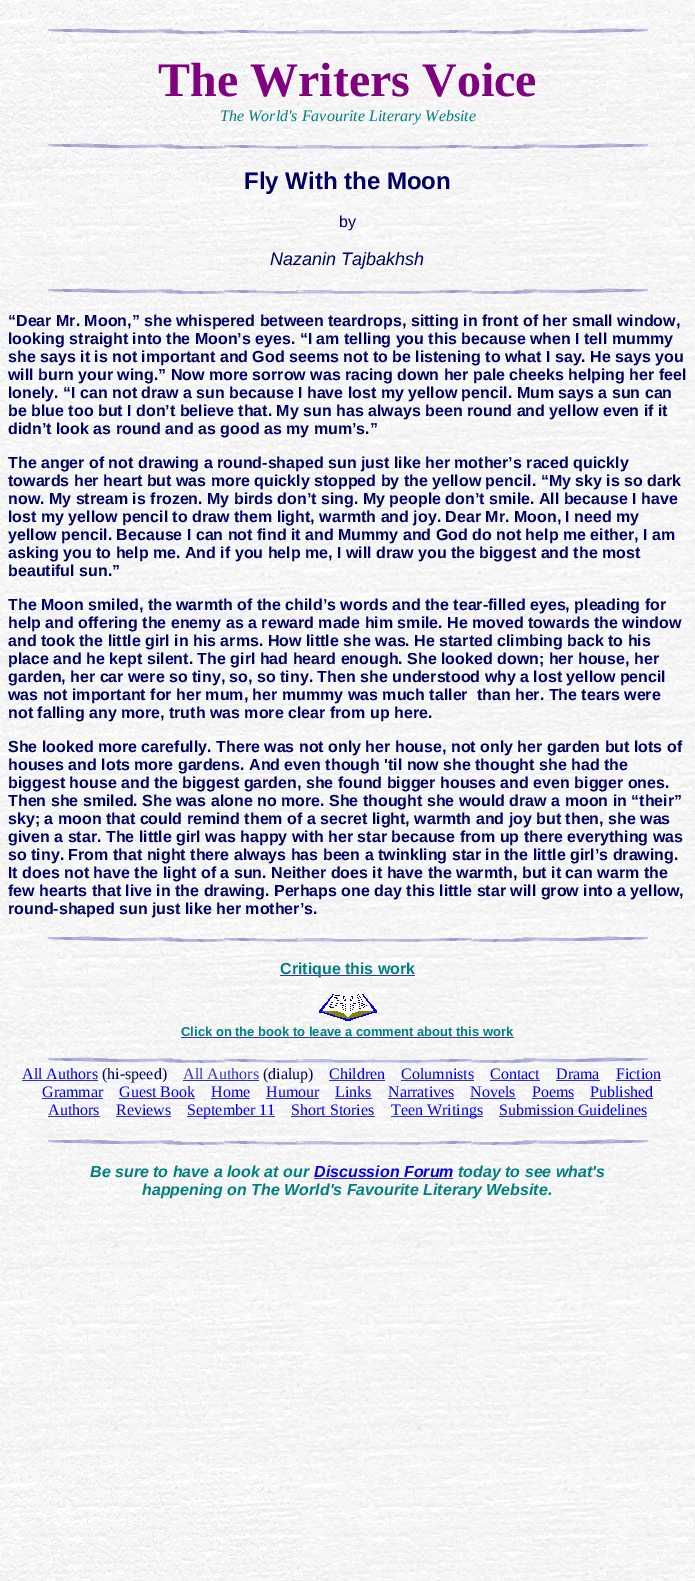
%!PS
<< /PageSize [695 1581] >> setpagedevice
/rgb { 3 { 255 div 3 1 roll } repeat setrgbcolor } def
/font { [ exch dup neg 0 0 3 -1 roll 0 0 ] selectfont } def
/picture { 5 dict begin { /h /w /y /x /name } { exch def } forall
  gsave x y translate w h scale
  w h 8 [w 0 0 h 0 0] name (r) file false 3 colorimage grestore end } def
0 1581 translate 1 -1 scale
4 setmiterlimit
255 255 255 rgb
0 0 695 1581 rectfill
(img/1.rgb) 0 0 695 1581 picture
(img/2.rgb) 48 28 600 6 picture
(img/3.rgb) 48 143 600 6 picture
(img/4.rgb) 48 288 600 6 picture
(img/5.rgb) 48 936 600 6 picture
51 51 204 rgb
280 975 135 1 rectfill
(img/6.rgb) 319 991 58 30 picture
181 1037 333 1 rectfill
(img/7.rgb) 48 1057 600 6 picture
(img/8.rgb) 8 1065 679 134 picture
[
  [22 1080 76 1 51 51 204]
  [183 1080 76 1 51 51 204]
  [329 1080 56 1 51 51 204]
  [401 1080 73 1 51 51 204]
  [490 1080 50 1 51 51 204]
  [556 1080 44 1 51 51 204]
  [616 1080 45 1 51 51 204]
  [42 1098 61 1 51 51 204]
  [119 1098 76 1 51 51 204]
  [211 1098 39 1 51 51 204]
  [266 1098 53 1 51 51 204]
  [335 1098 37 1 51 51 204]
  [388 1098 66 1 51 51 204]
  [470 1098 46 1 51 51 204]
  [532 1098 42 1 51 51 204]
  [590 1098 63 1 51 51 204]
  [48 1116 52 1 51 51 204]
  [116 1116 55 1 51 51 204]
  [187 1116 88 1 51 51 204]
  [291 1116 84 1 51 51 204]
  [391 1116 92 1 51 51 204]
  [499 1116 148 1 51 51 204]
] { aload pop rgb rectfill } forall
(img/9.rgb) 48 1139 600 6 picture
314 1178 139 1 rectfill
/LiberationSerif-Bold 48 font
128 0 128 rgb
158 96 moveto (The Writers Voice) show
/LiberationSerif-Italic 16 font
0 128 128 rgb
220 121 moveto (The World's Favourite Literary Website) show
/LiberationSans-Bold 24 font
0 0 102 rgb
244 189 moveto (Fly With the Moon) show
/LiberationSans-Regular 16 font
339 227 moveto (by) show
/LiberationSans-Italic 18 font
270 265 moveto (Nazanin Tajbakhsh) show
/LiberationSans-Bold 16 font
[
  [(“Dear Mr. Moon,” she whispered between teardrops, sitting in front of her small window,) 8 326]
  [(looking straight into the Moon’s eyes. “I am telling you this because when I tell mummy) 8 344]
  [(she says it is not important and God seems not to be listening to what I say. He says you) 8 362]
  [(will burn your wing.” Now more sorrow was racing down her pale cheeks helping her feel) 8 380]
  [(lonely. “I can not draw a sun because I have lost my yellow pencil. Mum says a sun can) 8 398]
  [(be blue too but I don’t believe that. My sun has always been round and yellow even if it) 8 416]
  [(didn’t look as round and as good as my mum’s.”) 8 434]
  [(The anger of not drawing a round-shaped sun just like her mother’s raced quickly) 8 468]
  [(towards her heart but was more quickly stopped by the yellow pencil. “My sky is so dark) 8 486]
  [(now. My stream is frozen. My birds don’t sing. My people don’t smile. All because I have) 8 504]
  [(lost my yellow pencil to draw them light, warmth and joy. Dear Mr. Moon, I need my) 8 522]
  [(yellow pencil. Because I can not find it and Mummy and God do not help me either, I am) 8 540]
  [(asking you to help me. And if you help me, I will draw you the biggest and the most) 8 558]
  [(beautiful sun.”) 8 576]
  [(The Moon smiled, the warmth of the child’s words and the tear-filled eyes, pleading for) 8 610]
  [(help and offering the enemy as a reward made him smile. He moved towards the window) 8 628]
  [(and took the little girl in his arms. How little she was. He started climbing back to his) 8 646]
  [(place and he kept silent. The girl had heard enough. She looked down; her house, her) 8 664]
  [(garden, her car were so tiny, so, so tiny. Then she understood why a lost yellow pencil) 8 682]
  [(was not important for her mum, her mummy was much taller  than her. The tears were) 8 700]
  [(not falling any more, truth was more clear from up here.) 8 718]
  [(She looked more carefully. There was not only her house, not only her garden but lots of) 8 752]
  [(houses and lots more gardens. And even though 'til now she thought she had the) 8 770]
  [(biggest house and the biggest garden, she found bigger houses and even bigger ones.) 8 788]
  [(Then she smiled. She was alone no more. She thought she would draw a moon in “their”) 8 806]
  [(sky; a moon that could remind them of a secret light, warmth and joy but then, she was) 8 824]
  [(given a star. The little girl was happy with her star because from up there everything was) 8 842]
  [(so tiny. From that night there always has been a twinkling star in the little girl’s drawing.) 8 860]
  [(It does not have the light of a sun. Neither does it have the warmth, but it can warm the) 8 878]
  [(few hearts that live in the drawing. Perhaps one day this little star will grow into a yellow,) 8 896]
  [(round-shaped sun just like her mother’s.) 8 914]
] { aload pop moveto show } forall
0 128 128 rgb
280 974 moveto (Critique this work) show
/LiberationSans-Bold 13 font
181 1036 moveto (Click on the book to leave a comment about this work) show
/LiberationSerif-Regular 16 font
0 0 255 rgb
22 1079 moveto (All Authors) show
0 0 102 rgb
102 1079 moveto (\(hi-speed\)) show
51 51 204 rgb
183 1079 moveto (All Authors) show
0 0 102 rgb
263 1079 moveto (\(dialup\)) show
0 0 255 rgb
[
  [(Children) 329 1079]
  [(Columnists) 401 1079]
  [(Contact) 490 1079]
  [(Drama) 556 1079]
  [(Fiction) 616 1079]
  [(Grammar) 42 1097]
  [(Guest Book) 119 1097]
  [(Home) 211 1097]
  [(Humour) 266 1097]
  [(Links) 335 1097]
  [(Narratives) 388 1097]
  [(Novels) 470 1097]
  [(Poems) 532 1097]
  [(Published) 590 1097]
  [(Authors) 48 1115]
  [(Reviews) 116 1115]
  [(September 11) 187 1115]
  [(Short Stories) 291 1115]
  [(Teen Writings) 391 1115]
  [(Submission Guidelines) 499 1115]
] { aload pop moveto show } forall
/LiberationSans-BoldItalic 16 font
0 128 128 rgb
90 1177 moveto (Be sure to have a look at our) show
0 0 255 rgb
314 1177 moveto (Discussion Forum) show
0 128 128 rgb
458 1177 moveto (today to see what's) show
142 1195 moveto (happening on The World's Favourite Literary Website.) show
showpage
